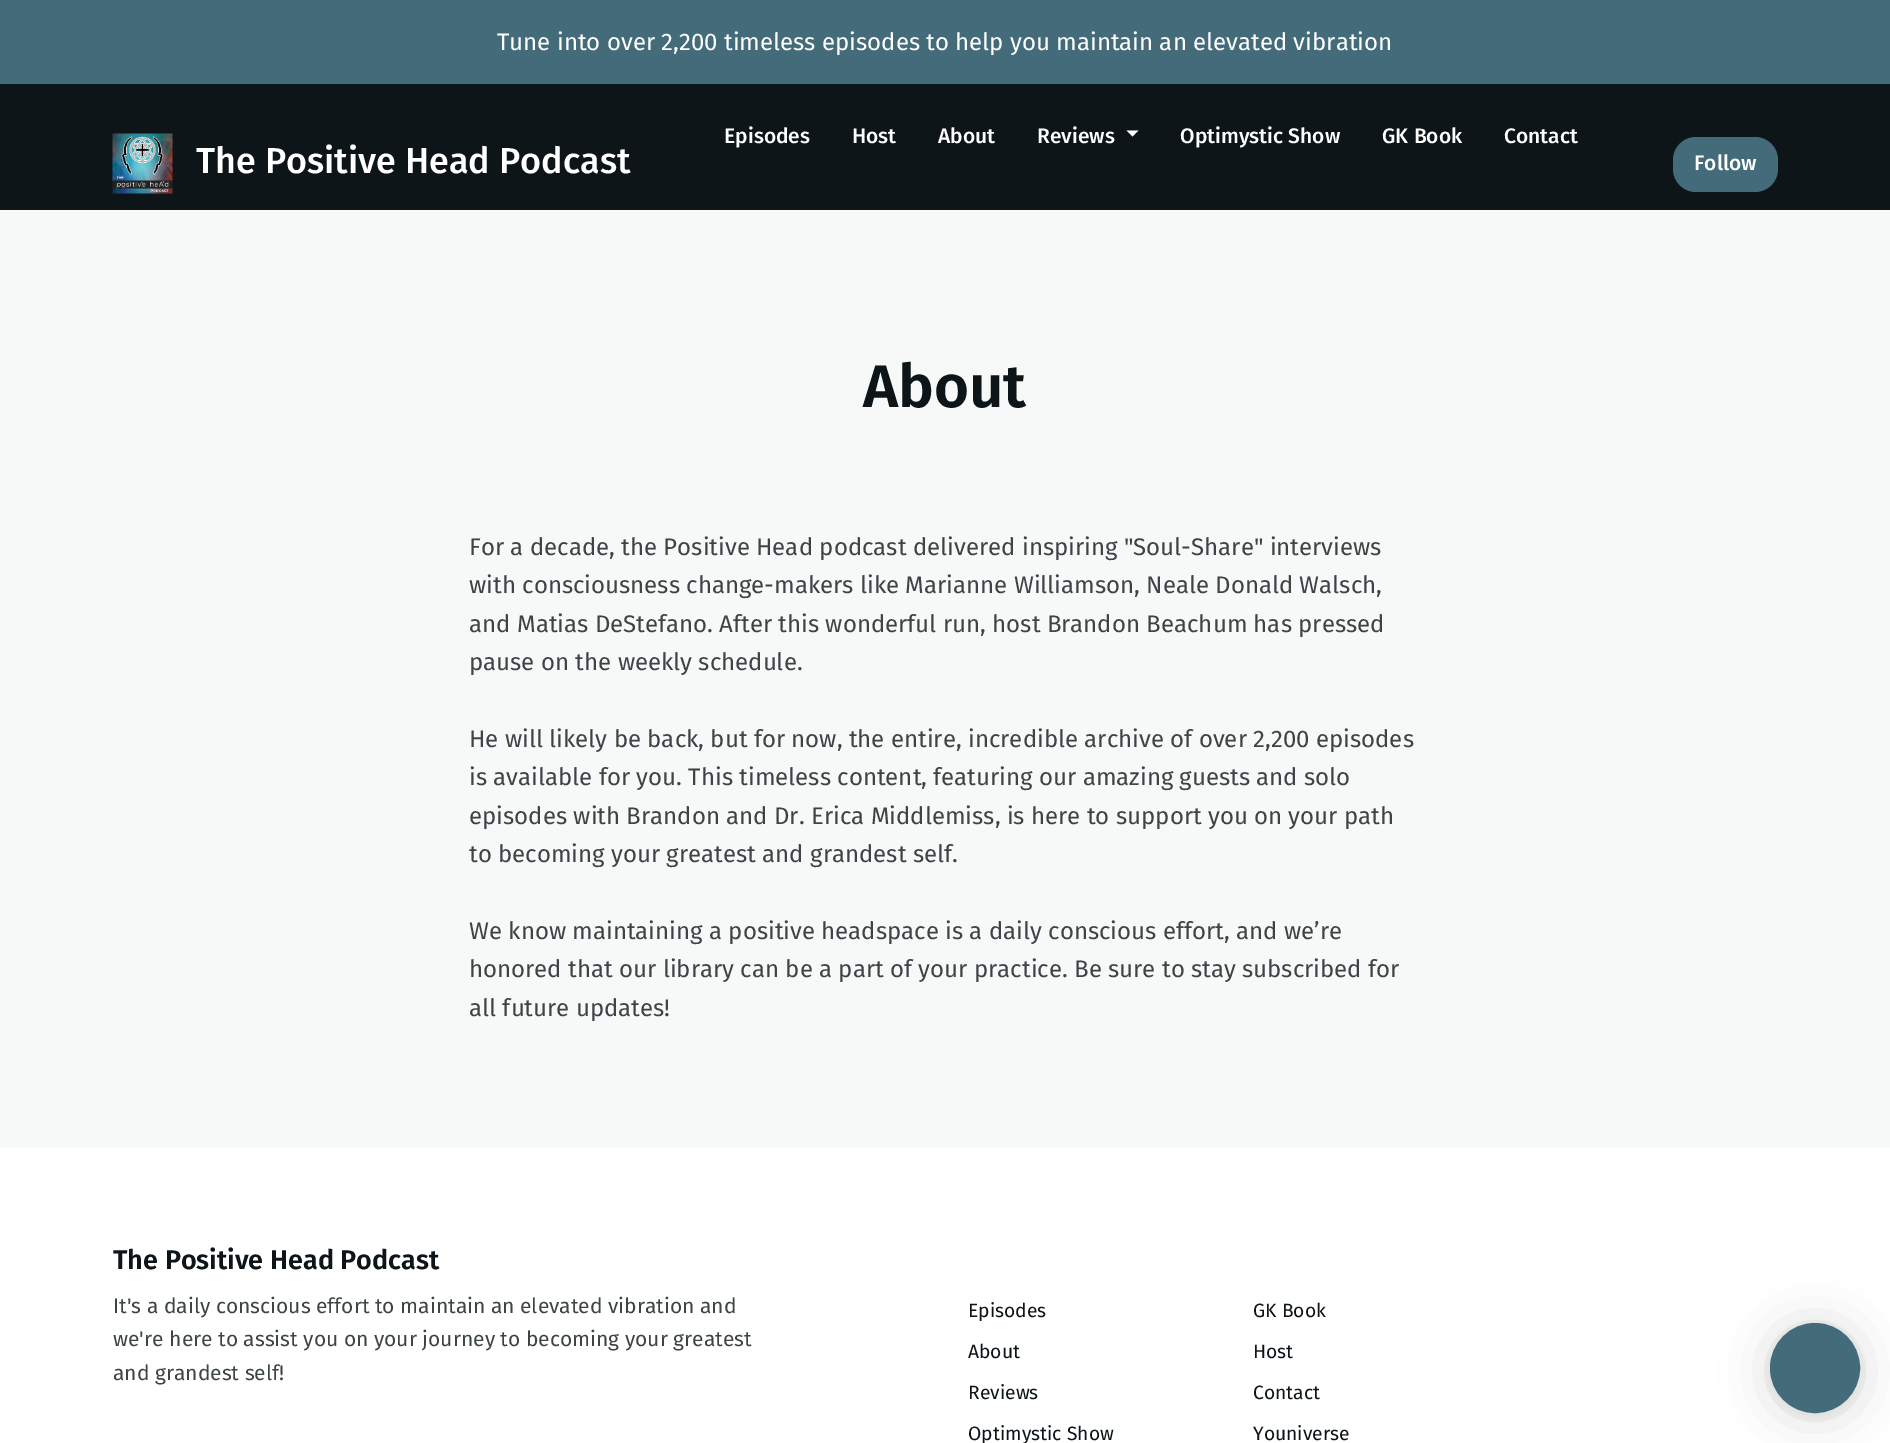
%!PS
<< /PageSize [1890 1443] /PageUsesTransparency true >> setpagedevice
/rgb { 3 { 255 div 3 1 roll } repeat setrgbcolor } def
/font { [ exch dup neg 0 0 3 -1 roll 0 0 ] selectfont } def
/alpha { dup .setfillconstantalpha .setstrokeconstantalpha } def
/circle { newpath 0 360 arc closepath } def
/roundrect { 5 dict begin { /r /h /w /y /x } { exch def } forall
  x r add y moveto x w add y 2 copy h add r arct x w add y h add x 1 index r arct
  x y h add x y r arct x y 2 copy exch w add exch r arct closepath end } def
/shadow { 12 dict begin { /a /b /q /h /w /y /x } { exch def } forall gsave /was 0 def
  9 -2 -9 { dup b mul 4 div /e exch def 1 sub .425 mul 2.718 exch exp 1 add a .99 .min exch div /now exch def
    1 1 now sub 1 was sub div sub alpha /was now def
    w h .min e 2 mul add 0 gt { x e sub y e sub w e 2 mul add h e 2 mul add
      q e add b .6 mul add w h .min 2 div e add .min 0 .max roundrect fill } if } for grestore end } def
/picture { 5 dict begin { /h /w /y /x /name } { exch def } forall
  gsave x y translate w h scale
  w h 8 [w 0 0 h 0 0] name (r) file false 3 colorimage grestore end } def
0 .pushpdf14devicefilter
0 1443 translate 1 -1 scale
4 setmiterlimit
255 255 255 rgb
0 0 1890 1443 rectfill
[
  [0 210 1890 938 247 249 249]
  [0 0 1890 84 67 107 122]
  [0 84 1890 126 13 21 24]
] { aload pop rgb rectfill } forall
255 255 255 rgb
1126.5 130.5 moveto 1138.5 130.5 lineto 1132.5 136.5 lineto closepath fill
(img/1.rgb) 112 133 61 61 picture
67 107 122 rgb
1673 137 105 55 23 roundrect fill
0 0 0 rgb
1770 1326 90 90 45 24 0.16 shadow
1770 1325 90 90 45 4.5 0.06 shadow
67 107 122 rgb
1815 1368 44 circle gsave fill grestore
2 setlinewidth
stroke
/FiraSans-Regular 24 font
255 255 255 rgb
497 50 moveto (Tune into over 2,200 timeless episodes to help you maintain an elevated vibration) show
/FiraSans-Medium 21 font
[
  [(Episodes) 724 143]
  [(Host) 852 143]
  [(About) 938 143]
  [(Reviews) 1037 143]
  [(Optimystic Show) 1180 143]
  [(GK Book) 1382 143]
  [(Contact) 1504 143]
] { aload pop moveto show } forall
/FiraSans-Medium 36 font
196 173 moveto (The Positive Head Podcast) show
/FiraSans-Medium 21 font
1694 170 moveto (Follow) show
/FiraSans-SemiBold 60 font
13 21 24 rgb
863 407 moveto (About) show
/FiraSans-Regular 24 font
61 68 70 rgb
[
  [(For a decade, the Positive Head podcast delivered inspiring "Soul-Share" interviews) 469 555]
  [(with consciousness change-makers like Marianne Williamson, Neale Donald Walsch,) 469 593]
  [(and Matias DeStefano. After this wonderful run, host Brandon Beachum has pressed) 469 632]
  [(pause on the weekly schedule.) 469 670]
  [(He will likely be back, but for now, the entire, incredible archive of over 2,200 episodes) 469 747]
  [(is available for you. This timeless content, featuring our amazing guests and solo) 469 785]
  [(episodes with Brandon and Dr. Erica Middlemiss, is here to support you on your path) 469 824]
  [(to becoming your greatest and grandest self.) 469 862]
  [(We know maintaining a positive headspace is a daily conscious effort, and we’re) 469 939]
  [(honored that our library can be a part of your practice. Be sure to stay subscribed for) 469 977]
  [(all future updates!) 469 1016]
] { aload pop moveto show } forall
/FiraSans-SemiBold 27 font
13 21 24 rgb
113 1269 moveto (The Positive Head Podcast) show
/FiraSans-Regular 21 font
61 68 70 rgb
[
  [(It's a daily conscious effort to maintain an elevated vibration and) 113 1313]
  [(we're here to assist you on your journey to becoming your greatest) 113 1346]
  [(and grandest self!) 113 1380]
] { aload pop moveto show } forall
/FiraSans-Regular 19.25 font
13 21 24 rgb
[
  [(Episodes) 968 1317]
  [(About) 968 1358]
  [(Reviews) 968 1399]
  [(Optimystic Show) 968 1440]
  [(GK Book) 1253 1317]
  [(Host) 1253 1358]
  [(Contact) 1253 1399]
  [(Youniverse) 1253 1440]
] { aload pop moveto show } forall
.poppdf14devicefilter showpage
